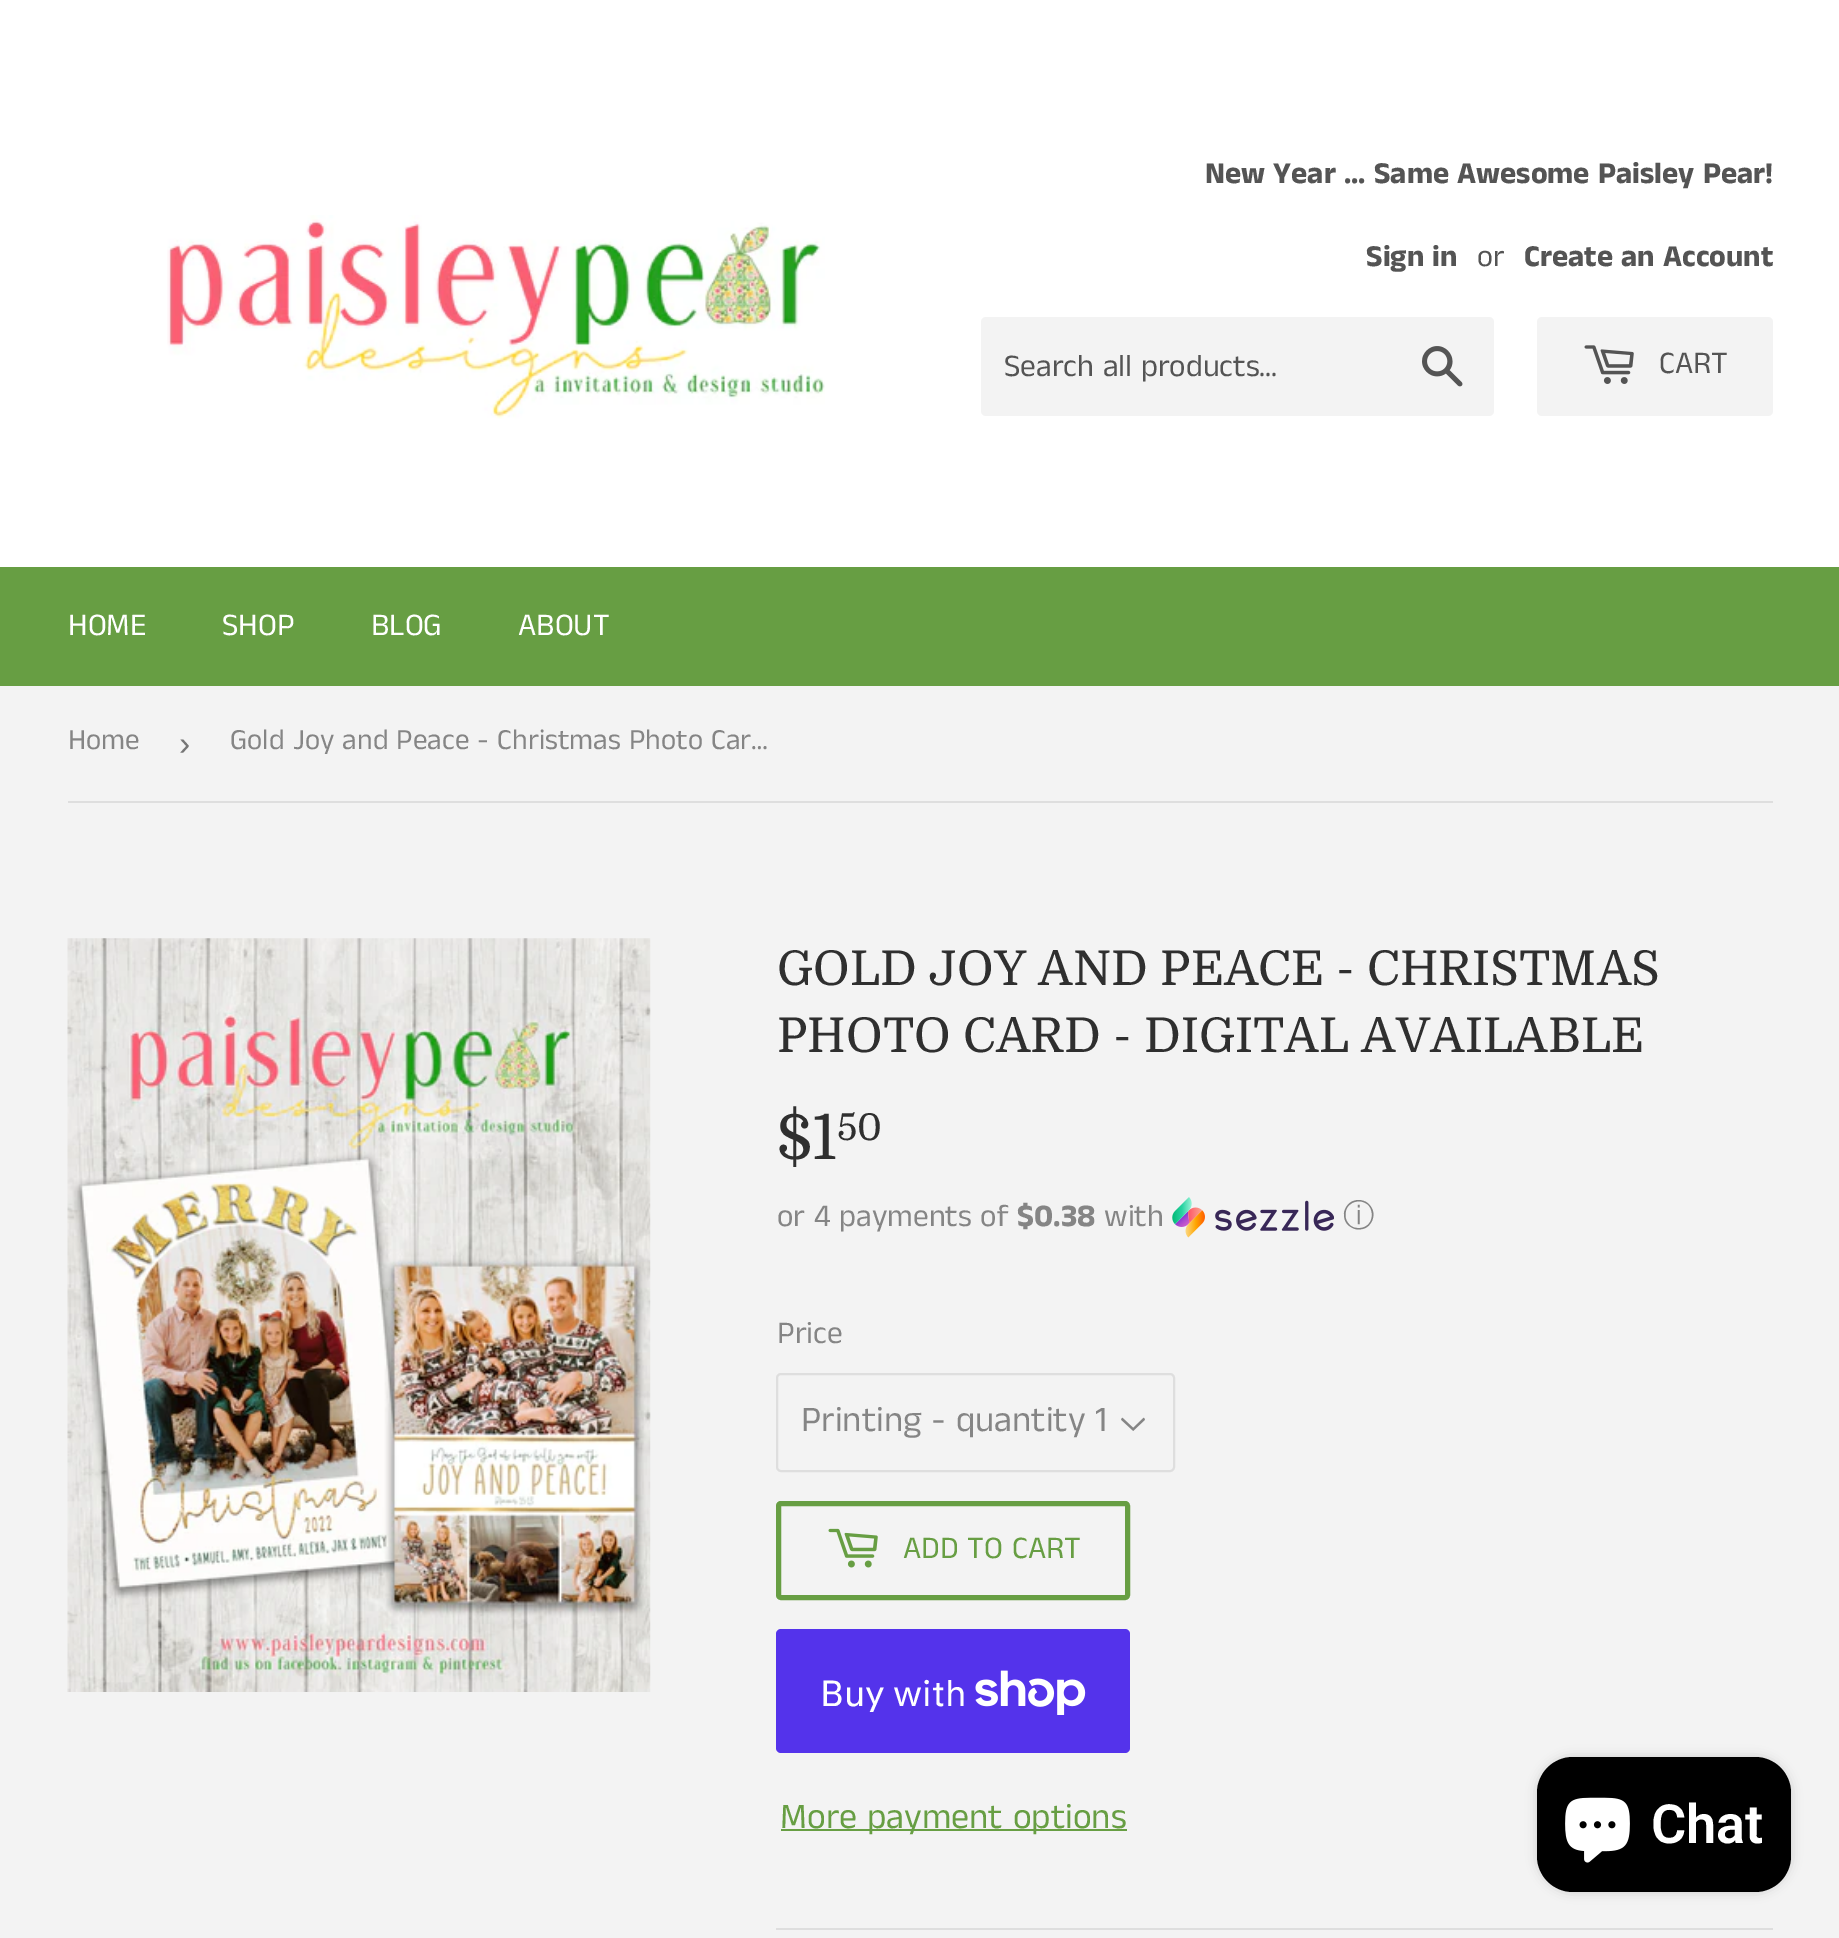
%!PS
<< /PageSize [1839 1938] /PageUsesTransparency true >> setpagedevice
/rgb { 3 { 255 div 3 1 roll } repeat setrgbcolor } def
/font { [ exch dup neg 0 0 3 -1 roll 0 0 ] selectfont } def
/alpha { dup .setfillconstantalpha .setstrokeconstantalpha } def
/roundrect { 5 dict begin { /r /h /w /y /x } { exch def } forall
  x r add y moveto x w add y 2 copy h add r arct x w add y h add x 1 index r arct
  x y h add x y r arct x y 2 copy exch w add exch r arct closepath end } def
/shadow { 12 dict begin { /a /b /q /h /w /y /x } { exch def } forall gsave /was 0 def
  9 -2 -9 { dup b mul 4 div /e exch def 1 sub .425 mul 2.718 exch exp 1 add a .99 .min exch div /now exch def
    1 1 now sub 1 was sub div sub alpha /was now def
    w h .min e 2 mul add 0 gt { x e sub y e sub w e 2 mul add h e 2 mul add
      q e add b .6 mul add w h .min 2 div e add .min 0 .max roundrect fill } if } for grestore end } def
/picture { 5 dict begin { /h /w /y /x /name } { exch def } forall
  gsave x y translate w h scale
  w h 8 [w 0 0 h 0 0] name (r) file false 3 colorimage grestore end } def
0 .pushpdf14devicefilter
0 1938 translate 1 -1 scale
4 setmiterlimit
243 243 243 rgb
0 0 1839 1938 rectfill
255 255 255 rgb
0 0 1839 567 rectfill
(img/1.rgb) 167 215 658 204 picture
243 243 243 rgb
981 317 513 99 5 roundrect fill
(img/2.rgb) 1422 346 41 41 picture
1537 317 236 99 5 roundrect fill
(img/3.rgb) 1584 345 50 39 picture
103 158 67 rgb
0 567 1839 119 rectfill
222 222 222 rgb
68 801 1705 2 rectfill
(img/4.rgb) 67 938 584 754 picture
(img/5.rgb) 1172 1197 162 41 picture
(img/6.rgb) 1121 1417 24 14 picture
2 setlinewidth
777 1374 397 97 4 roundrect stroke
103 158 67 rgb
5 setlinewidth
778.5 1503.5 349 94 2.5 roundrect stroke
(img/7.rgb) 828 1528 50 40 picture
84 51 235 rgb
776 1629 354 124 5 roundrect fill
(img/8.rgb) 975 1670 111 45 picture
103 158 67 rgb
781 1829 346 2 rectfill
222 222 222 rgb
776 1928 997 2 rectfill
0 0 0 rgb
1537 1757 254 135 36 5.5 0.15 shadow
1537 1757 254 135 36 roundrect fill
(img/9.rgb) 1565 1797 65 66 picture
/AnekTamil-Bold 30.6 font
84 84 84 rgb
1205 183 moveto (New Year ... Same Awesome Paisley Pear!) show
1366 266 moveto (Sign in) show
/AnekTamil-Regular 30.6 font
1477 266 moveto (or) show
/AnekTamil-Bold 30.6 font
1524 266 moveto (Create an Account) show
/AnekTamil-Regular 31.5 font
1004 376 moveto (Search all products...) show
1659 373 moveto (CART) show
255 255 255 rgb
[
  [(HOME) 68 635]
  [(SHOP) 222 635]
  [(BLOG) 371 635]
  [(ABOUT) 518 635]
] { aload pop moveto show } forall
/AnekTamil-Regular 29.25 font
133 133 133 rgb
68 749 moveto (Home) show
/LiberationSans-Regular 34 font
118 118 118 rgb
179 755 moveto (›) show
/AnekTamil-Regular 29.25 font
133 133 133 rgb
230 749 moveto (Gold Joy and Peace - Christmas Photo Car…) show
/Domine-Regular 48 font
47 47 47 rgb
777 985 moveto (GOLD JOY AND PEACE - CHRISTMAS) show
777 1052 moveto (PHOTO CARD - DIGITAL AVAILABLE) show
/Domine-Regular 62 font
777 1159 moveto ($1) show
/Domine-Regular 37 font
837 1140 moveto (50) show
/AnekTamil-Regular 31.5 font
133 133 133 rgb
777 1226 moveto (or 4 payments of) show
/AnekTamil-Bold 31.5 font
1017 1226 moveto ($0.38) show
/AnekTamil-Regular 31.5 font
1104 1226 moveto (with) show
/WenQuanYiZenHei-Medium 31.5 font
1343 1226 moveto (ⓘ) show
/AnekTamil-Regular 31.5 font
777 1343 moveto (Price) show
/AnekTamil-Regular 36 font
801 1431 moveto (Printing - quantity 1) show
/AnekTamil-Regular 31.5 font
103 158 67 rgb
903 1558 moveto (ADD TO CART) show
/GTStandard-Regular 36 font
255 255 255 rgb
820 1706 moveto (Buy with) show
/AnekTamil-Regular 36 font
103 158 67 rgb
780 1828 moveto (More payment options) show
/Roboto-SemiBold 54 font
255 255 255 rgb
1651 1843 moveto (Chat) show
.poppdf14devicefilter showpage
